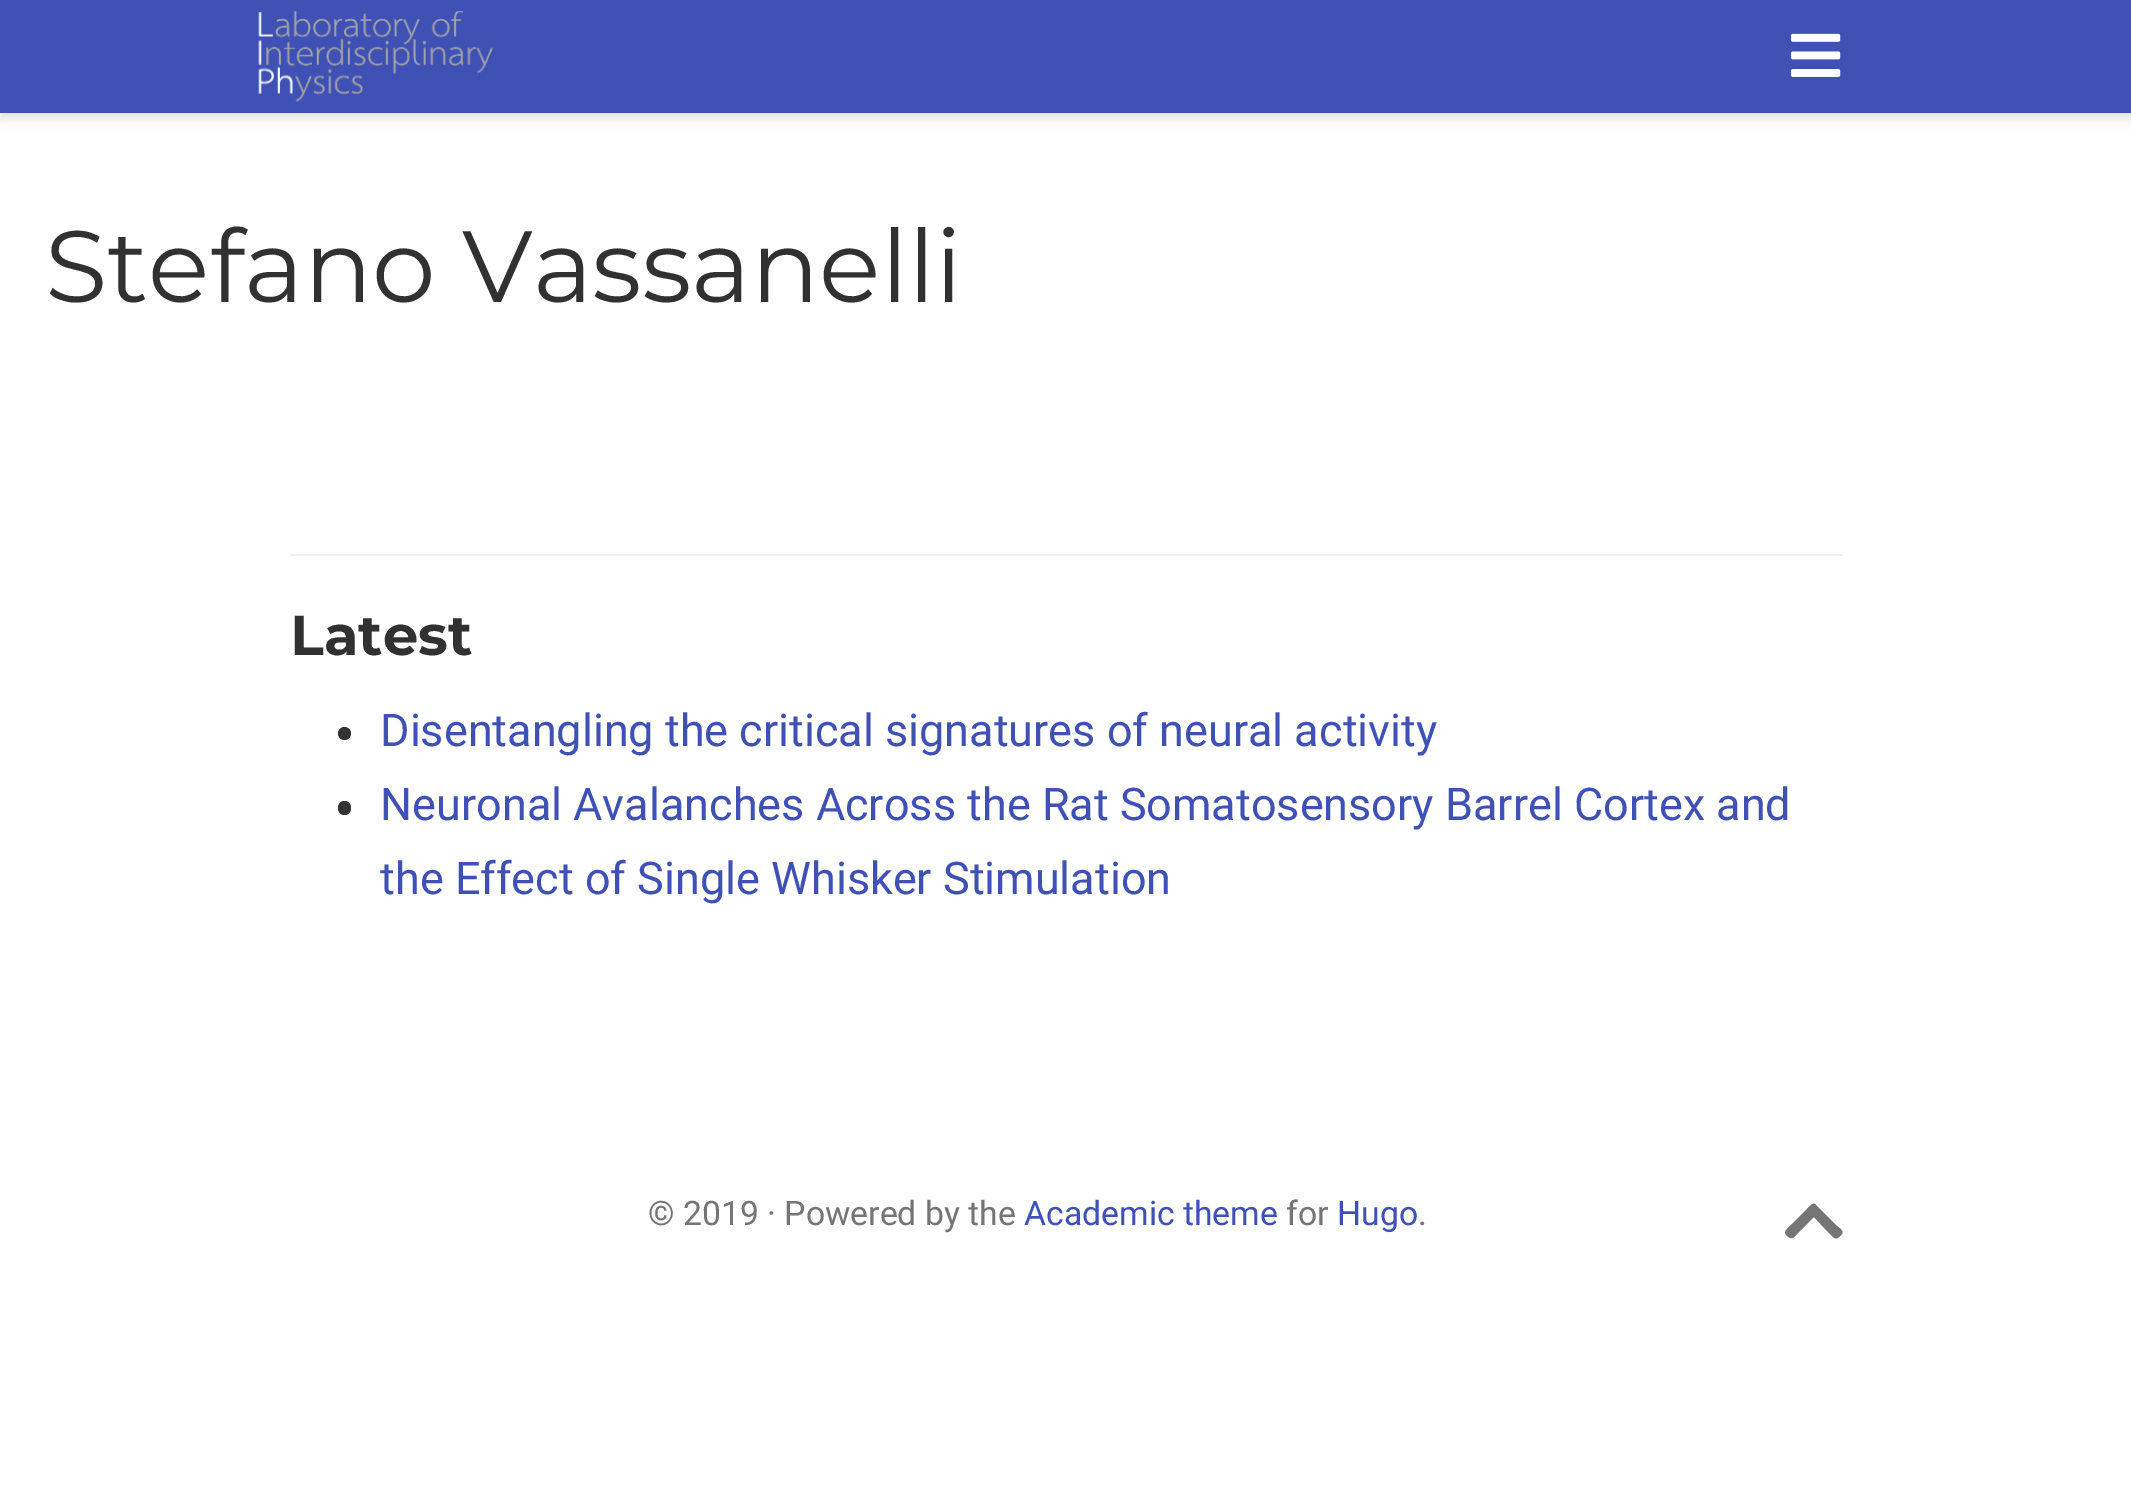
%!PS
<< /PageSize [2131 1504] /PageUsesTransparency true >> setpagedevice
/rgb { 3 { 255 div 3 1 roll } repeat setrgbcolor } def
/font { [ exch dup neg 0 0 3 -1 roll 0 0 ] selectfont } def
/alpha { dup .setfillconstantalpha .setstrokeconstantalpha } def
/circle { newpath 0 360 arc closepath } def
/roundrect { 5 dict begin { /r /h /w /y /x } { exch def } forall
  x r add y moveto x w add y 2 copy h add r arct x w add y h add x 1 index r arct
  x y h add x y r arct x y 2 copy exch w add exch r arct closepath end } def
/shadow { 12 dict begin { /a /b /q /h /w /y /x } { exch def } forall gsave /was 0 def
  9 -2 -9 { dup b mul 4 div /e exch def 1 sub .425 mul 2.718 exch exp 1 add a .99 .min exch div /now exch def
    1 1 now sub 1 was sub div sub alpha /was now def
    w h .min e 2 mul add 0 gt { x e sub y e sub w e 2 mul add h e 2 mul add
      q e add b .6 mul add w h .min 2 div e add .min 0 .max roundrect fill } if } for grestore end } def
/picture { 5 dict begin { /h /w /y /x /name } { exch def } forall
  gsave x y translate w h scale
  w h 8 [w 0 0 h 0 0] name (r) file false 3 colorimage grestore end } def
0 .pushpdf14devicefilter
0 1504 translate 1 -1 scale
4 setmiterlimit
255 255 255 rgb
0 0 2131 1504 rectfill
0 0 0 rgb
0 7 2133 112 0 5.5 0.11 shadow
63 81 181 rgb
0 0 2131 113 rectfill
(img/1.rgb) 258 11 235 91 picture
(img/2.rgb) 1791 33 50 44 picture
242 242 242 rgb
290 554 1553 2 rectfill
51 51 51 rgb
344.5 733.5 6.5 circle fill
338 801 13 14 6.5 roundrect fill
117 117 117 rgb
1816 1205 moveto 1837 1226 lineto 1842 1230 1845 1232 1840 1236 curveto 1835 1242 1833 1236 1827 1231 curveto 1814 1217 lineto 1797 1234 lineto 1795 1236 1793 1239 1790 1238 curveto 1787 1236 lineto 1783 1232 1786 1230 1790 1226 curveto 1807 1209 lineto 1809 1207 1813 1201 1816 1205 curveto closepath fill
/Montserrat-Regular 101.25 font
49 49 49 rgb
45 302 moveto (Stefano Vassanelli) show
/Montserrat-Bold 56 font
290 655 moveto (Latest) show
/Roboto-Regular 45 font
63 81 181 rgb
[
  [(Disentangling the critical signatures of neural activity) 380 746]
  [(Neuronal Avalanches Across the Rat Somatosensory Barrel Cortex and) 380 820]
  [(the Effect of Single Whisker Stimulation) 380 894]
] { aload pop moveto show } forall
/Roboto-Regular 33.75 font
117 117 117 rgb
648 1225 moveto (© 2019 · Powered by the) show
63 81 181 rgb
1024 1225 moveto (Academic theme) show
117 117 117 rgb
1286 1225 moveto (for) show
63 81 181 rgb
1337 1225 moveto (Hugo) show
117 117 117 rgb
1418 1225 moveto (.) show
.poppdf14devicefilter showpage
